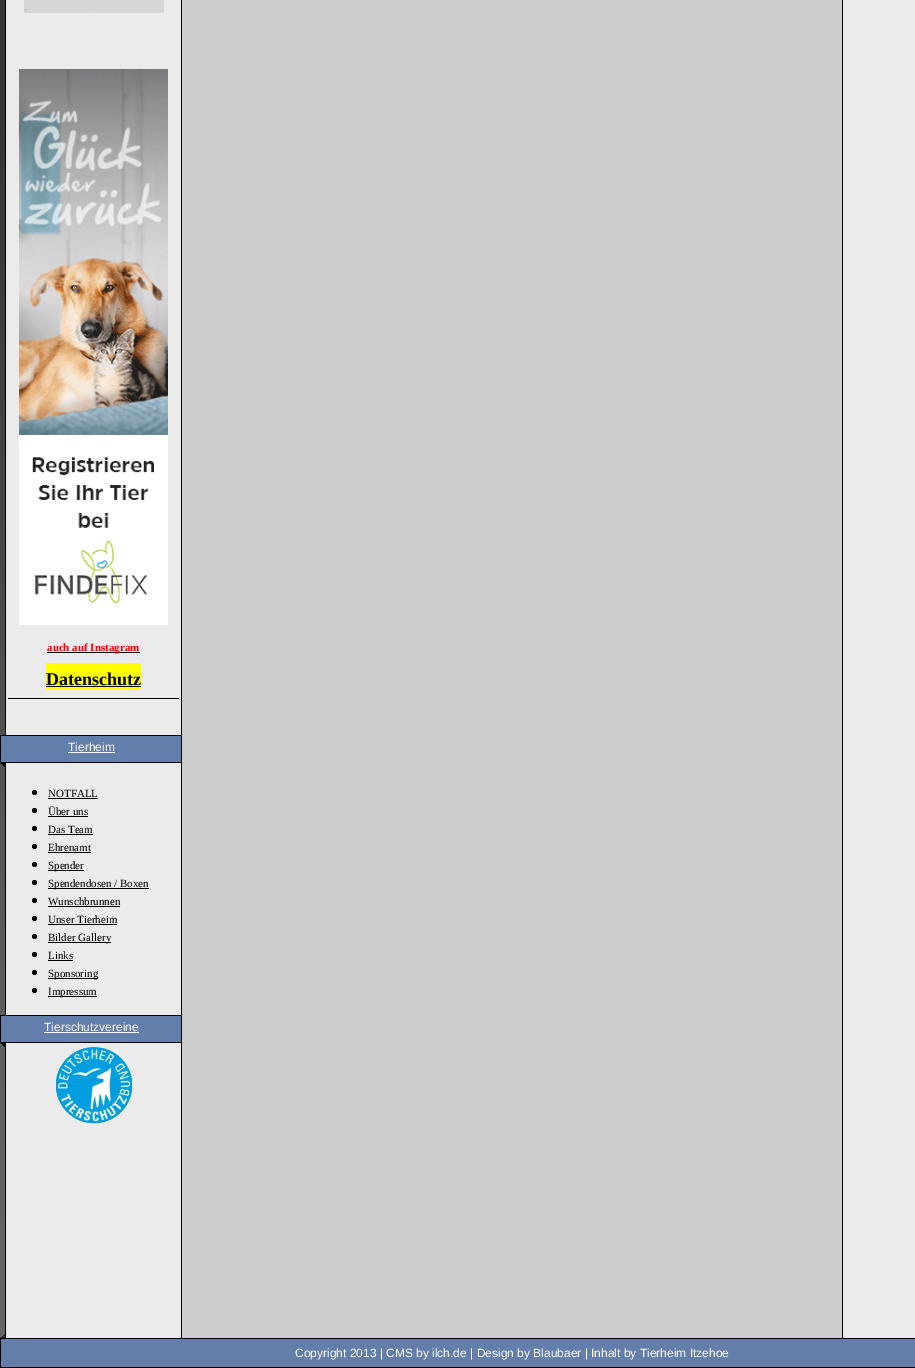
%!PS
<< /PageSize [915 1368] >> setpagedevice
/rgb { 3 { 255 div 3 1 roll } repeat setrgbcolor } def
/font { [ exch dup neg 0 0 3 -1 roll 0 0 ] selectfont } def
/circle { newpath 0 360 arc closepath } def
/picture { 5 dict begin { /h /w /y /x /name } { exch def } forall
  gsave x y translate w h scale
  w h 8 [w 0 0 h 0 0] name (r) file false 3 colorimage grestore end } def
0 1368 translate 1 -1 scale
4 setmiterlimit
255 255 255 rgb
0 0 915 1368 rectfill
(img/1.rgb) 0 0 5 1338 picture
(img/2.rgb) 5 0 910 1334 picture
(img/3.rgb) 24 0 140 13 picture
(img/4.rgb) 19 69 149 535 picture
[
  [19 604 149 21 255 255 255]
  [47 652 93 1 0 0 0]
  [46 663 95 27 255 255 0]
  [46 686 95 1 0 0 0]
  [8 698 171 1 0 0 0]
] { aload pop rgb rectfill } forall
(img/5.rgb) 0 735 181 32 picture
249 249 249 rgb
68 752 47 1 rectfill
0 0 0 rgb
34.5 792.5 2.5 circle fill
48 798 50 1 rectfill
34.5 810.5 2.5 circle fill
48 816 40 1 rectfill
34.5 828.5 2.5 circle fill
48 834 45 1 rectfill
34.5 846.5 2.5 circle fill
48 852 43 1 rectfill
34.5 864.5 2.5 circle fill
48 870 36 1 rectfill
34.5 882.5 2.5 circle fill
48 888 101 1 rectfill
34.5 900.5 2.5 circle fill
48 906 72 1 rectfill
34.5 918.5 2.5 circle fill
48 924 69 1 rectfill
34.5 936.5 2.5 circle fill
48 942 63 1 rectfill
34.5 954.5 2.5 circle fill
48 960 25 1 rectfill
34.5 972.5 2.5 circle fill
48 978 50 1 rectfill
34.5 990.5 2.5 circle fill
48 996 49 1 rectfill
(img/6.rgb) 0 1015 181 32 picture
249 249 249 rgb
44 1032 95 1 rectfill
(img/7.rgb) 56 1047 76 77 picture
(img/8.rgb) 0 1334 915 34 picture
/LiberationSerif-Bold 11 font
255 0 0 rgb
47 651 moveto (auch auf Instagram) show
/LiberationSerif-Bold 18 font
0 0 0 rgb
46 685 moveto (Datenschutz) show
/LiberationSans-Regular 12 font
249 249 249 rgb
68 751 moveto (Tierheim) show
/LiberationSerif-Regular 11 font
0 0 0 rgb
[
  [(NOTFALL) 48 797]
  [(Über uns) 48 815]
  [(Das Team) 48 833]
  [(Ehrenamt) 48 851]
  [(Spender) 48 869]
  [(Spendendosen / Boxen) 48 887]
  [(Wunschbrunnen) 48 905]
  [(Unser Tierheim) 48 923]
  [(Bilder Gallery) 48 941]
  [(Links) 48 959]
  [(Sponsoring) 48 977]
  [(Impressum) 48 995]
] { aload pop moveto show } forall
/LiberationSans-Regular 12 font
249 249 249 rgb
44 1031 moveto (Tierschutzvereine) show
255 255 255 rgb
295 1357 moveto (Copyright 2013 | CMS by ilch.de | Design by Blaubaer | Inhalt by Tierheim Itzehoe) show
showpage
